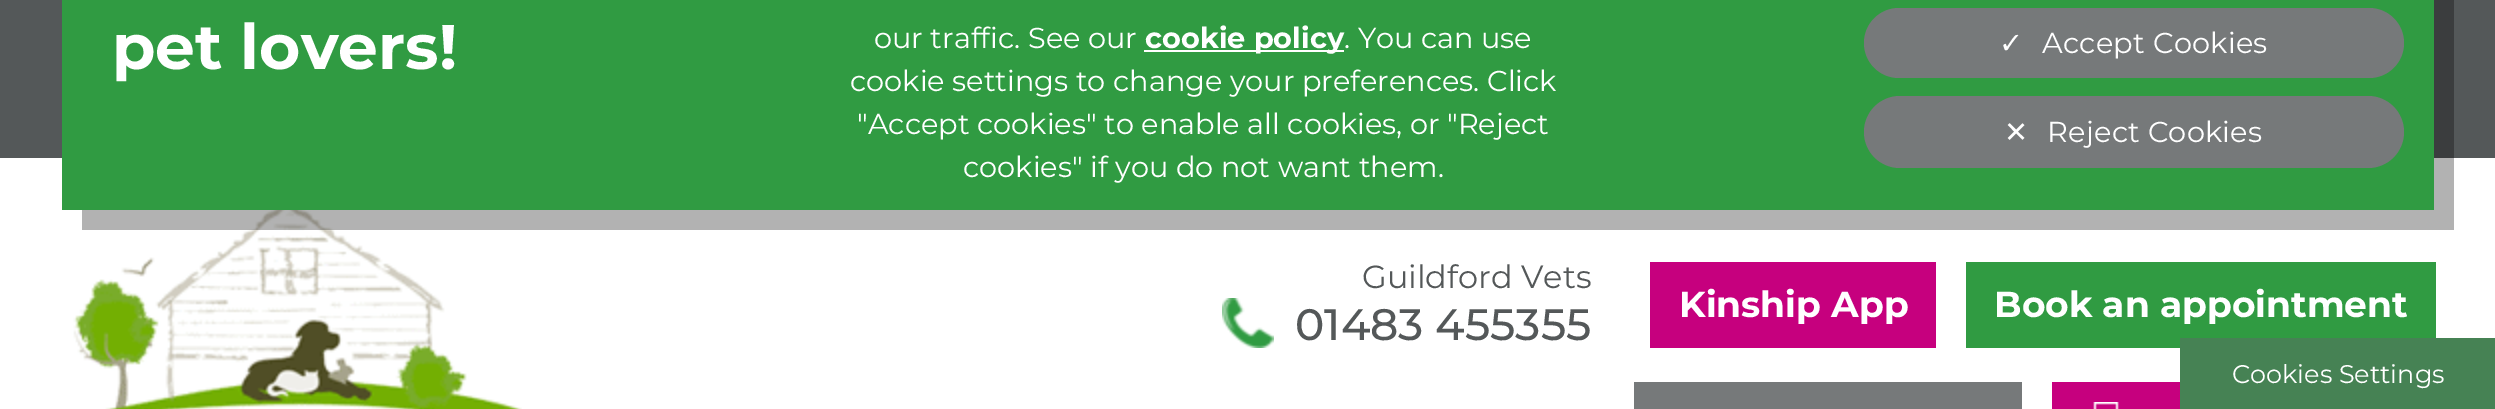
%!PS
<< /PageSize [2495 409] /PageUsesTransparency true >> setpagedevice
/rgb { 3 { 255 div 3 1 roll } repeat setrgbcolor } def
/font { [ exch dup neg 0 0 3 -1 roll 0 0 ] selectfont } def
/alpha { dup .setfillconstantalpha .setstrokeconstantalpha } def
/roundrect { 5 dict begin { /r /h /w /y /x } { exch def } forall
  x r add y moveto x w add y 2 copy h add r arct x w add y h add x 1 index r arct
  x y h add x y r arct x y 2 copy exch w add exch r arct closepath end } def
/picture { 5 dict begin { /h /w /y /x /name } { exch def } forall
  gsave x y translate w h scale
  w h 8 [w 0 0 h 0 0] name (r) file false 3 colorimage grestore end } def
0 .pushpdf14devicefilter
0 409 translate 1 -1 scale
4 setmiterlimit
255 255 255 rgb
0 0 2495 409 rectfill
84 88 89 rgb
0 0 2495 158 rectfill
(img/1.rgb) 60 198 462 211 picture
0.3 alpha
0 0 0 rgb
82 210 moveto 82 230 lineto 2454 230 lineto 2454 -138 lineto 2434 -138 lineto 2434 210 lineto closepath fill
1 alpha
48 155 66 rgb
62 0 2372 210 rectfill
255 255 255 rgb
1144 50 200 2 rectfill
118 121 122 rgb
1864 8 540 70 35 roundrect fill
1864 96 540 72 36 roundrect fill
(img/2.rgb) 1222 298 52 50 picture
[
  [1650 262 286 86 198 0 126]
  [1966 262 470 86 48 155 66]
  [1634 382 388 27 118 121 122]
  [2052 382 128 27 198 0 126]
] { aload pop rgb rectfill } forall
(img/3.rgb) 2093 402 26 7 picture
70 130 84 rgb
2180 338 315 71 rectfill
/Montserrat-Bold 63 font
255 255 255 rgb
112 69 moveto (pet lovers!) show
/Montserrat-Regular 28.8 font
874 48 moveto (our traffic. See our) show
/Montserrat-Bold 28.8 font
1145 48 moveto (cookie policy) show
/Montserrat-Regular 28.8 font
[
  [(. You can use) 1344 48]
  [(cookie settings to change your preferences. Click) 850 91]
  [("Accept cookies" to enable all cookies, or "Reject) 857 134]
  [(cookies" if you do not want them.) 963 177]
] { aload pop moveto show } forall
/DejaVuSans-Regular 28.8 font
1999 53 moveto 0.25 0 (✓) ashow
/Montserrat-Regular 28.8 font
2042 53 moveto 0.25 0 (Accept Cookies) ashow
/DejaVuSans-Regular 28.8 font
2004 142 moveto 0.25 0 (✕) ashow
/Montserrat-Regular 28.8 font
2047 142 moveto 0.25 0 (Reject Cookies) ashow
/Montserrat-Regular 32 font
84 88 89 rgb
1362 288 moveto (Guildford Vets) show
/Montserrat-Medium 44 font
1295 340 moveto (01483 455355) show
/Montserrat-Bold 36 font
255 255 255 rgb
1679 317 moveto (Kinship App) show
1994 317 moveto (Book an appointment) show
/Montserrat-Regular 25.5 font
2232 383 moveto (Cookies Settings) show
.poppdf14devicefilter showpage
